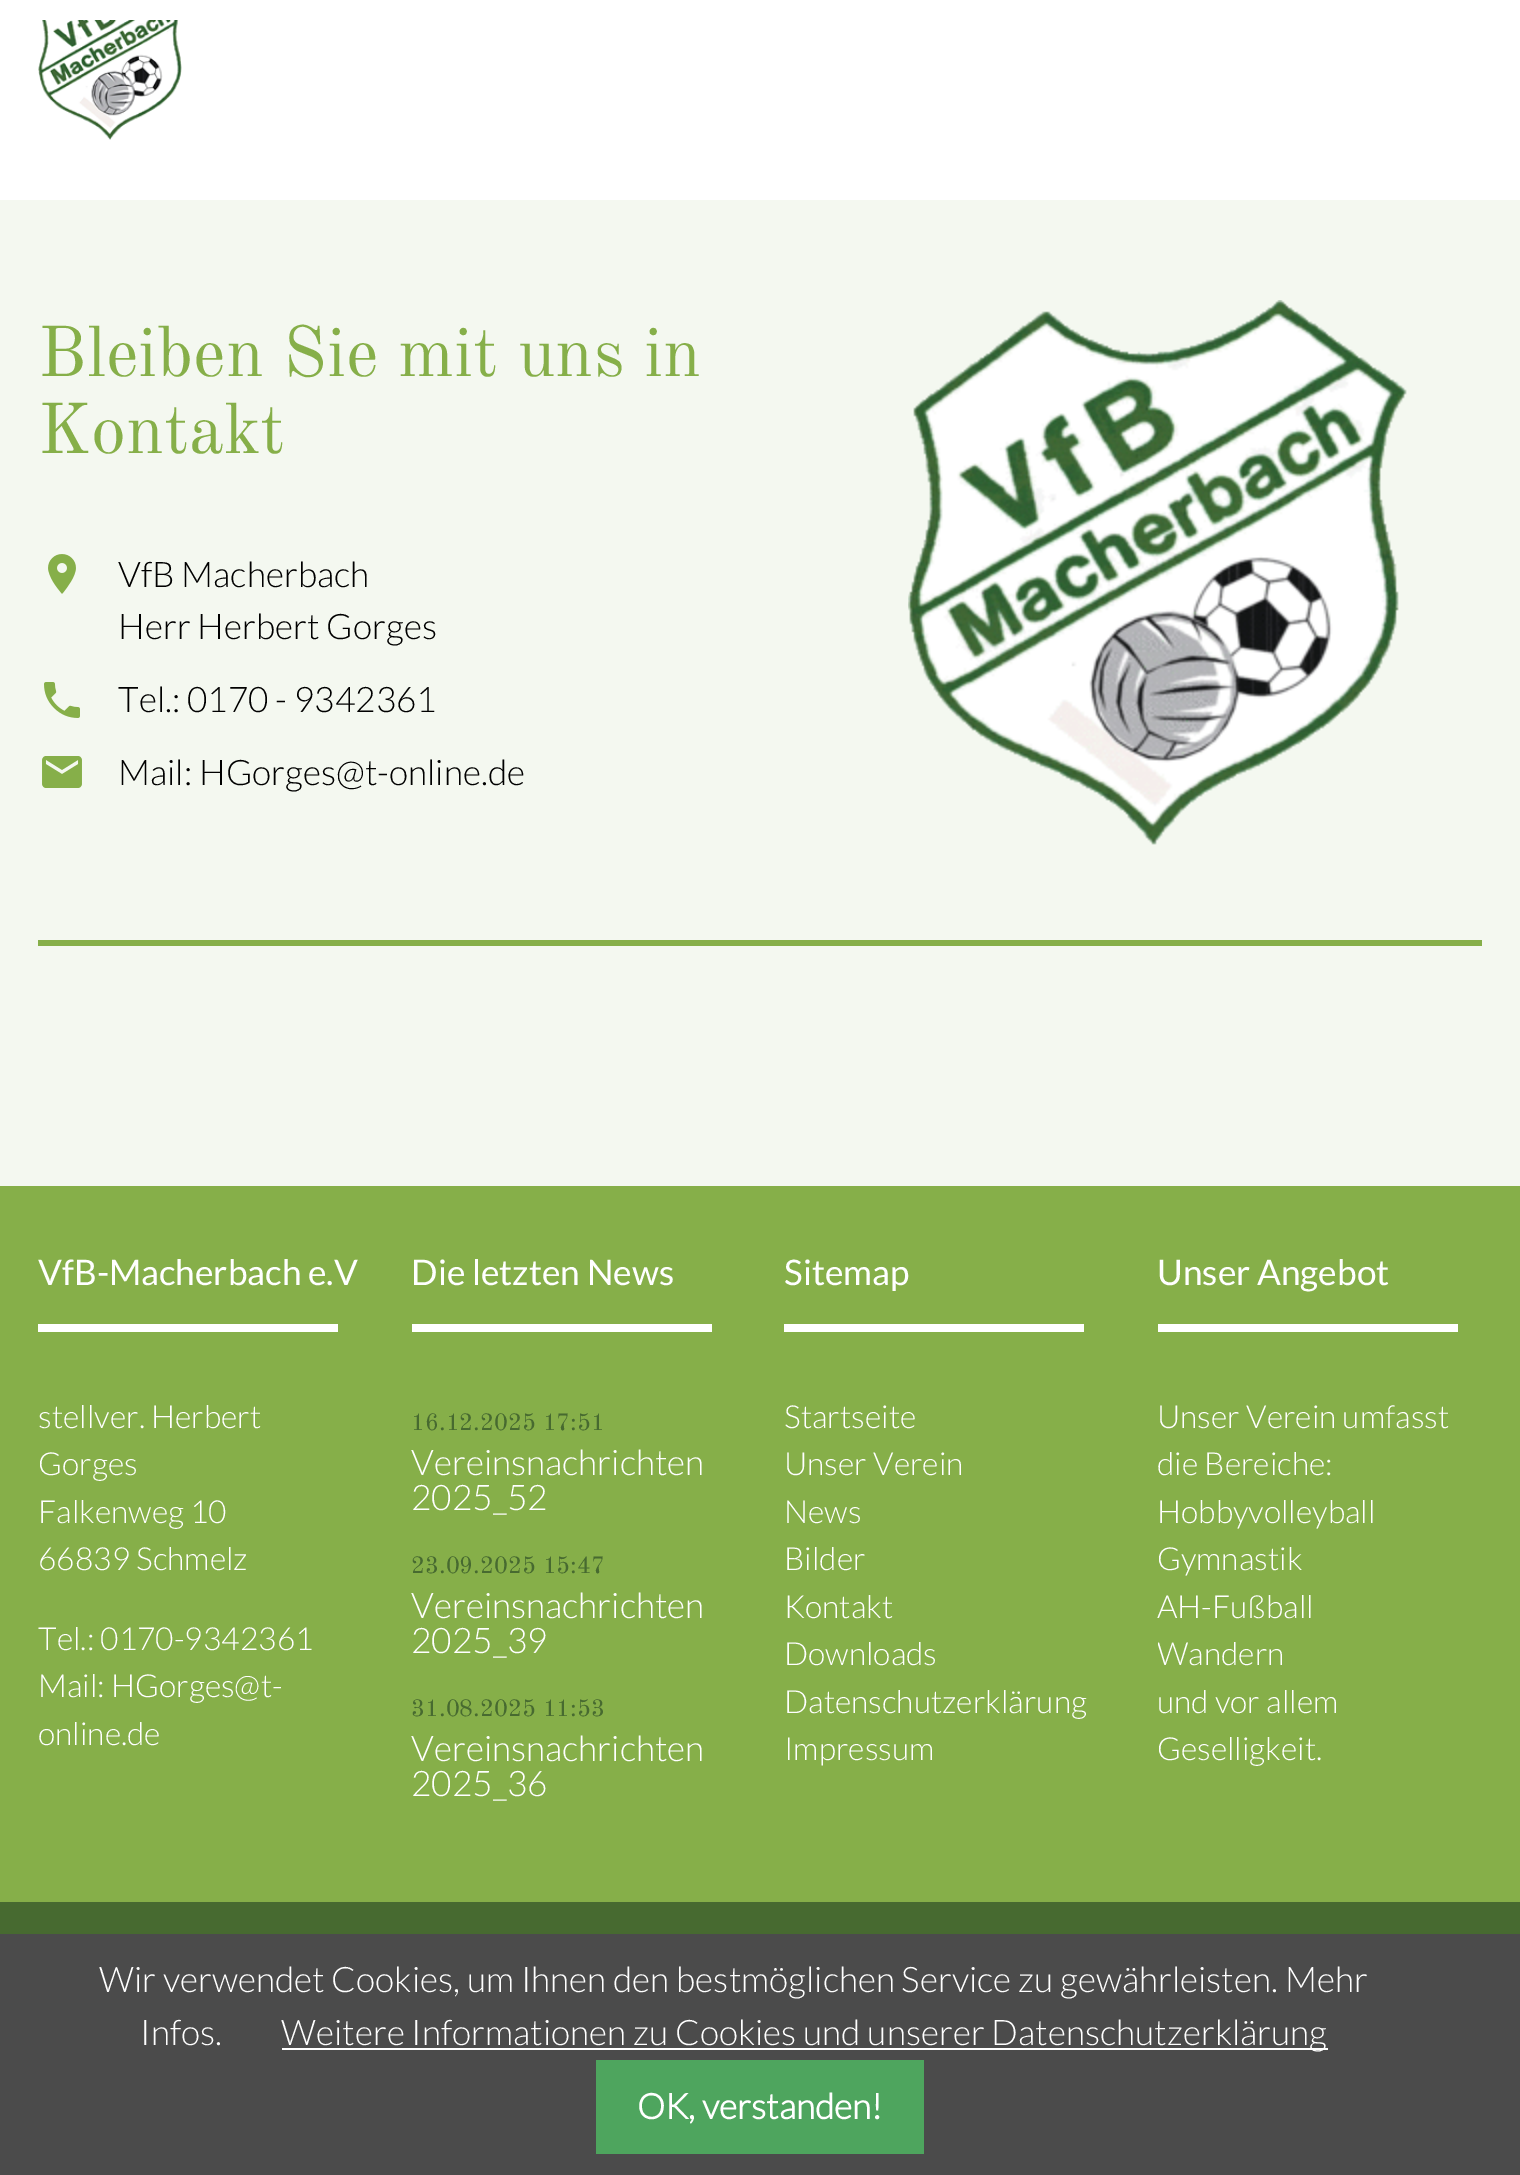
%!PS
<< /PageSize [1520 2175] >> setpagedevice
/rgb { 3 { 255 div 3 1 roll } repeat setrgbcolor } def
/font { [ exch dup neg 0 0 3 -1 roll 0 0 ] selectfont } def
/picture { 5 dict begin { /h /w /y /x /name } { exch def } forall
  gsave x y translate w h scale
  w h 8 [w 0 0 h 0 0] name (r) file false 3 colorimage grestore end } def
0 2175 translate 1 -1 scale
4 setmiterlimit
244 248 240 rgb
0 0 1520 2175 rectfill
255 255 255 rgb
0 0 1520 200 rectfill
(img/1.rgb) 38 20 144 120 picture
(img/2.rgb) 48 554 28 40 picture
(img/3.rgb) 44 682 36 36 picture
(img/4.rgb) 42 756 40 32 picture
(img/5.rgb) 908 300 499 545 picture
[
  [38 940 1444 6 134 175 73]
  [0 1186 1520 716 134 175 73]
  [38 1324 300 8 255 255 255]
  [412 1324 300 8 255 255 255]
  [784 1324 300 8 255 255 255]
  [1158 1324 300 8 255 255 255]
  [0 1902 1520 32 71 106 48]
  [0 1934 1520 241 75 75 75]
  [282 2048 1046 2 255 255 255]
  [596 2060 328 94 78 165 94]
] { aload pop rgb rectfill } forall
/OldStandardTT-Regular 70.5 font
134 175 73 rgb
38 376 moveto (Bleiben Sie mit uns in) show
38 453 moveto (Kontakt) show
/Lato-Light 35.2 font
0 0 0 rgb
[
  [(VfB Macherbach) 118 587]
  [(Herr Herbert Gorges) 118 639]
  [(Tel.: 0170 - 9342361) 118 712]
  [(Mail: HGorges@t-online.de) 118 785]
] { aload pop moveto show } forall
/Lato-Regular 35.2 font
255 255 255 rgb
38 1285 moveto (VfB-Macherbach e.V) show
/Lato-Light 31.75 font
[
  [(stellver. Herbert) 38 1428]
  [(Gorges) 38 1475]
  [(Falkenweg 10) 38 1523]
  [(66839 Schmelz) 38 1570]
  [(Tel.: 0170-9342361) 38 1650]
  [(Mail: HGorges@t-) 38 1697]
  [(online.de) 38 1745]
] { aload pop moveto show } forall
/Lato-Regular 35.2 font
411 1285 moveto (Die letzten News) show
/OldStandardTT-Regular 24 font
71 106 48 rgb
411 1430 moveto (16.12.2025 17:51) show
/Lato-Light 35.2 font
255 255 255 rgb
411 1475 moveto (Vereinsnachrichten) show
411 1510 moveto (2025_52) show
/OldStandardTT-Regular 24 font
71 106 48 rgb
411 1573 moveto (23.09.2025 15:47) show
/Lato-Light 35.2 font
255 255 255 rgb
411 1618 moveto (Vereinsnachrichten) show
411 1653 moveto (2025_39) show
/OldStandardTT-Regular 24 font
71 106 48 rgb
411 1716 moveto (31.08.2025 11:53) show
/Lato-Light 35.2 font
255 255 255 rgb
411 1761 moveto (Vereinsnachrichten) show
411 1796 moveto (2025_36) show
/Lato-Regular 35.2 font
784 1285 moveto (Sitemap) show
/Lato-Light 31.75 font
[
  [(Startseite) 784 1428]
  [(Unser Verein) 784 1475]
  [(News) 784 1523]
  [(Bilder) 784 1570]
  [(Kontakt) 784 1618]
  [(Downloads) 784 1665]
  [(Datenschutzerklärung) 784 1713]
  [(Impressum) 784 1760]
] { aload pop moveto show } forall
/Lato-Regular 35.2 font
1157 1285 moveto (Unser Angebot) show
/Lato-Light 31.75 font
[
  [(Unser Verein umfasst) 1157 1428]
  [(die Bereiche:) 1157 1475]
  [(Hobbyvolleyball) 1157 1523]
  [(Gymnastik) 1157 1570]
  [(AH-Fußball) 1157 1618]
] { aload pop moveto show } forall
gsave
1158 1226 324 578 rectclip
1157 1665 moveto (Wandern) show
grestore
1157 1713 moveto (und vor allem) show
1157 1760 moveto (Geselligkeit.) show
/Lato-Light 35.2 font
[
  [(Wir verwendet Cookies, um Ihnen den bestmöglichen Service zu gewährleisten. Mehr) 99 1992]
  [(Infos.) 140 2045]
  [(Weitere Informationen zu Cookies und unserer Datenschutzerklärung) 281 2045]
] { aload pop moveto show } forall
/Lato-Bold 35.2 font
637 2119 moveto (OK, verstanden!) show
showpage
